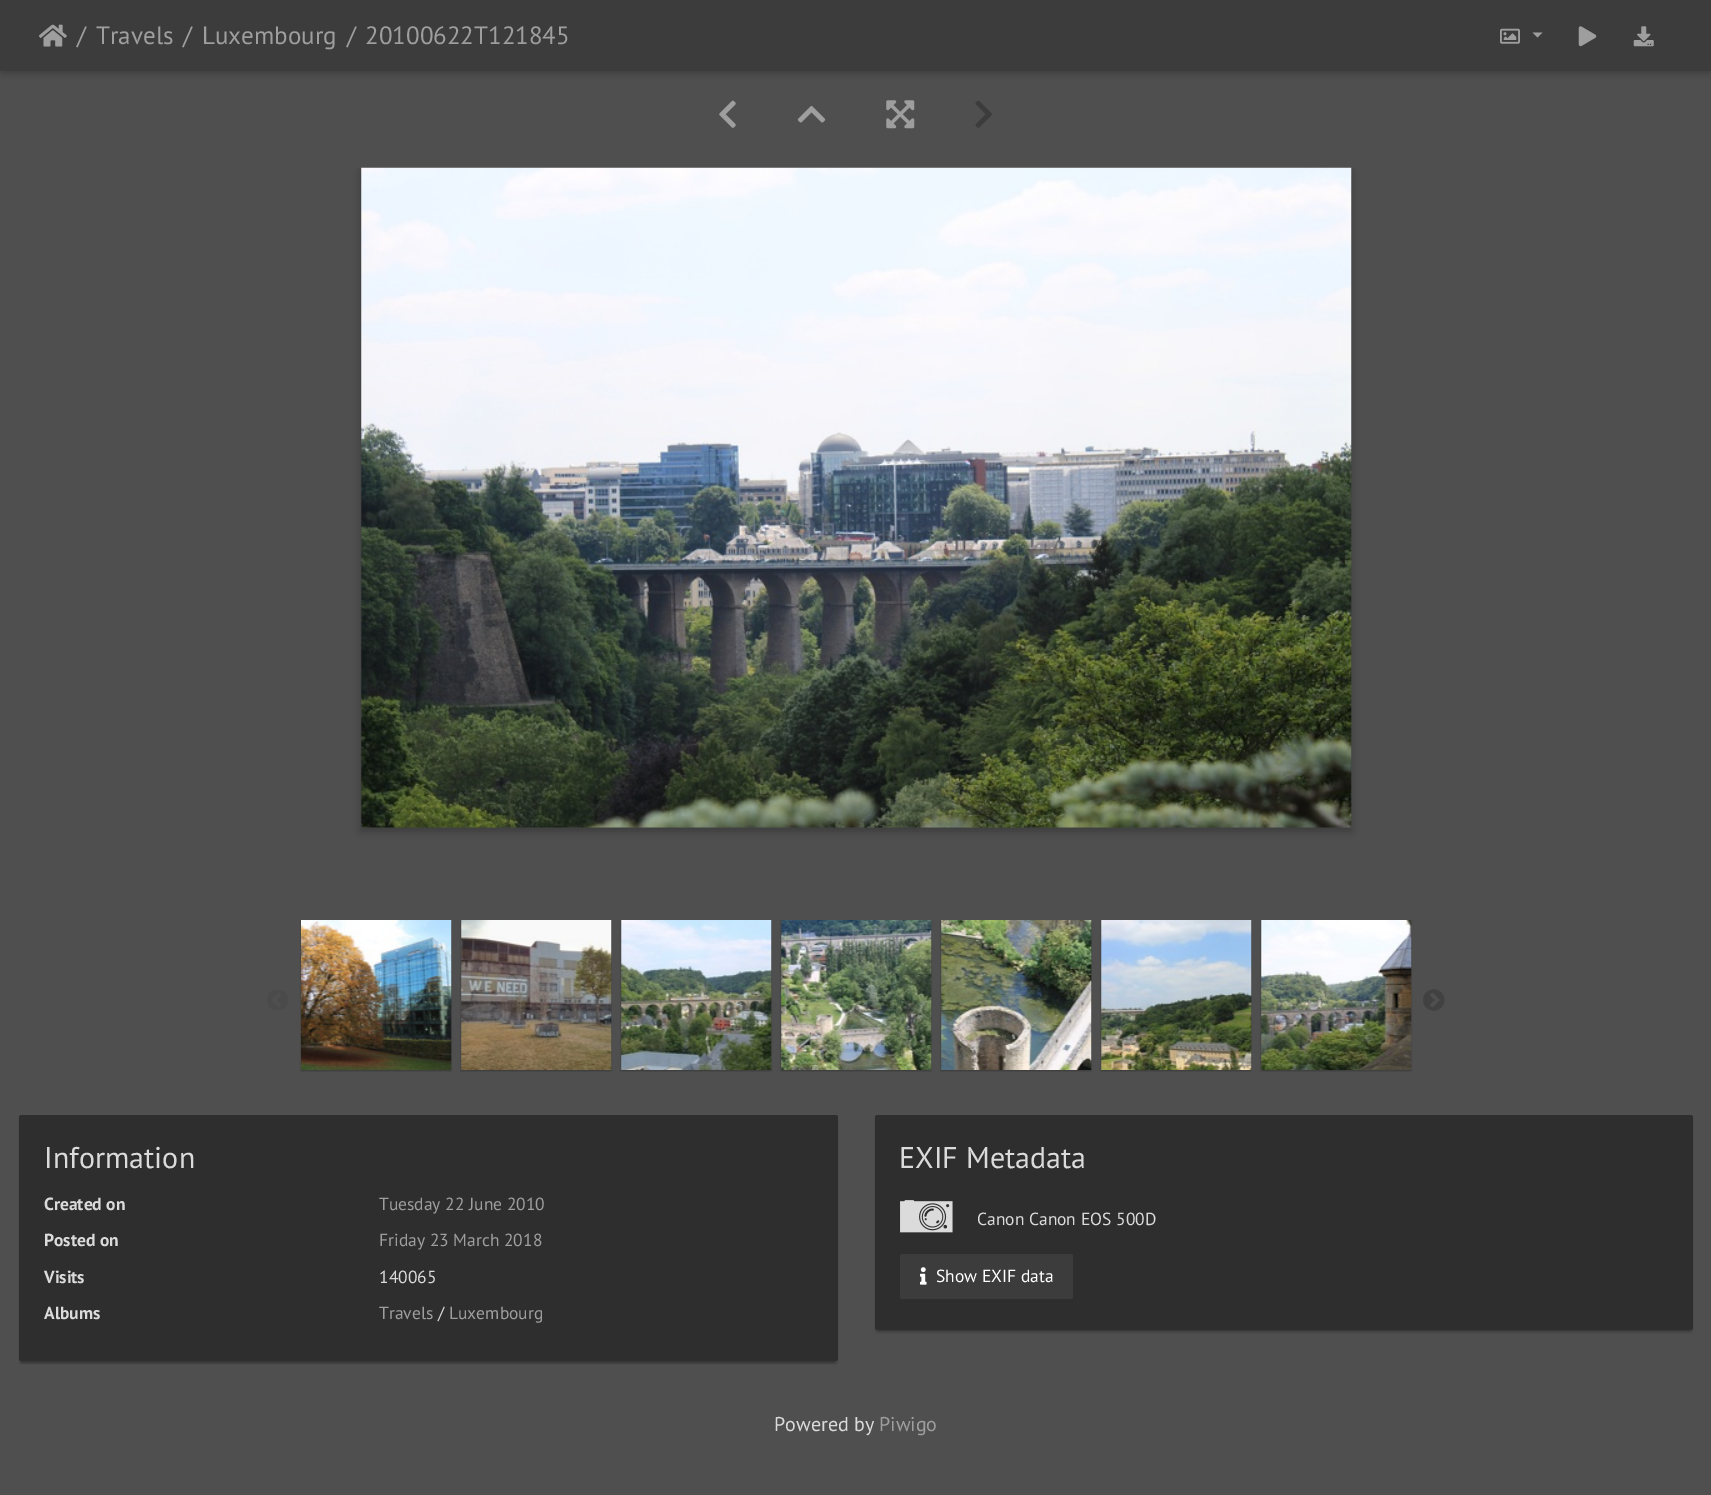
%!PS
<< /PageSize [1711 1495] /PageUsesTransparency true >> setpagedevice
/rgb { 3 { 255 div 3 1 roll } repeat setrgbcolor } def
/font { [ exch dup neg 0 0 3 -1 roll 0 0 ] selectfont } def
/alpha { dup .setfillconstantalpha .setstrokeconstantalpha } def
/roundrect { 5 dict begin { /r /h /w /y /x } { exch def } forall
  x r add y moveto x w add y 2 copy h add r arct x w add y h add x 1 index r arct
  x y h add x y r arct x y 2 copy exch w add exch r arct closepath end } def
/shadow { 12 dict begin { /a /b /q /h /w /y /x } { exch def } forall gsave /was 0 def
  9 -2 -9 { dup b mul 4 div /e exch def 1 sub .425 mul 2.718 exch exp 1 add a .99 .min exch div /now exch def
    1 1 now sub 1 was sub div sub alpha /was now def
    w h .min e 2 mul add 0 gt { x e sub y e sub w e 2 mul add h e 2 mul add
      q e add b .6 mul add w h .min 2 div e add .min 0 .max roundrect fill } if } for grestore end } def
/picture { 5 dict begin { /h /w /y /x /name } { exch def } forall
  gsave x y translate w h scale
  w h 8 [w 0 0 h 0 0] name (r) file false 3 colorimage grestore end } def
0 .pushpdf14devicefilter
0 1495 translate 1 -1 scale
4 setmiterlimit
79 79 79 rgb
0 0 1711 1495 rectfill
0 0 0 rgb
1 5 1709 69 0 3 0.2 shadow
60 60 60 rgb
0 0 1711 71 rectfill
(img/1.rgb) 39 24 28 23 picture
(img/2.rgb) 1500 28 20 16 picture
158 158 158 rgb
1532.5 32.5 moveto 1542.5 32.5 lineto 1537.5 37.5 lineto closepath fill
(img/3.rgb) 1578 26 19 21 picture
(img/4.rgb) 1633 26 21 21 picture
(img/5.rgb) 719 100 17 28 picture
(img/6.rgb) 797 106 29 17 picture
(img/7.rgb) 886 100 29 29 picture
(img/8.rgb) 975 100 17 28 picture
gsave
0 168 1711 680 rectclip
0 0 0 rgb
361 171 990 660 0 4 0.23 shadow
grestore
(img/9.rgb) 361 167 991 661 picture
(img/10.rgb) 267 990 21 20 picture
0 0 0 rgb
301 921 150 150 0 1 0.24 shadow
(img/11.rgb) 301 920 151 150 picture
461 921 150 150 0 1 0.24 shadow
(img/12.rgb) 461 920 151 150 picture
621 921 150 150 0 1 0.24 shadow
(img/13.rgb) 621 920 151 150 picture
781 921 150 150 0 1 0.24 shadow
(img/14.rgb) 781 920 151 150 picture
941 921 150 150 0 1 0.24 shadow
(img/15.rgb) 941 920 151 150 picture
1101 921 150 150 0 1 0.24 shadow
(img/16.rgb) 1101 920 151 150 picture
1261 921 150 150 0 1 0.24 shadow
(img/17.rgb) 1261 920 151 150 picture
(img/18.rgb) 1423 989 22 22 picture
21 1121 814 242 0 0.5 0.2 shadow
19 1118 819 246 2.5 1 0.14 shadow
46 46 46 rgb
19 1115 819 246 2.5 roundrect fill
0 0 0 rgb
878 1121 812 210 0 0.5 0.2 shadow
875 1118 818 215 2.5 1 0.14 shadow
46 46 46 rgb
875 1115 818 215 2.5 roundrect fill
(img/19.rgb) 900 1200 53 33 picture
60 60 60 rgb
900 1254 173 45 2.5 roundrect fill
(img/20.rgb) 920 1267 7 18 picture
/PTSans-Regular 25 font
158 158 158 rgb
[
  [(/) 77 44]
  [(Travels) 96 44]
  [(/) 183 44]
  [(Luxembourg) 202 44]
  [(/) 347 44]
  [(20100622T121845) 365 44]
] { aload pop moveto show } forall
/PTSans-Regular 30 font
219 219 219 rgb
44 1168 moveto (Information) show
/PTSans-Bold 17.5 font
44 1210 moveto (Created on) show
/PTSans-Regular 17.5 font
158 158 158 rgb
379 1210 moveto (Tuesday 22 June 2010) show
/PTSans-Bold 17.5 font
219 219 219 rgb
44 1246 moveto (Posted on) show
/PTSans-Regular 17.5 font
158 158 158 rgb
379 1246 moveto (Friday 23 March 2018) show
/PTSans-Bold 17.5 font
219 219 219 rgb
44 1283 moveto (Visits) show
/PTSans-Regular 17.5 font
379 1283 moveto (140065) show
/PTSans-Bold 17.5 font
44 1319 moveto (Albums) show
/PTSans-Regular 17.5 font
158 158 158 rgb
379 1319 moveto (Travels) show
219 219 219 rgb
438 1319 moveto (/) show
158 158 158 rgb
449 1319 moveto (Luxembourg) show
/PTSans-Regular 30 font
219 219 219 rgb
899 1168 moveto (EXIF Metadata) show
/PTSans-Regular 17.5 font
977 1225 moveto (Canon Canon EOS 500D) show
255 255 255 rgb
936 1282 moveto (Show EXIF data) show
/PTSans-Regular 20 font
219 219 219 rgb
774 1431 moveto (Powered by) show
158 158 158 rgb
879 1431 moveto (Piwigo) show
.poppdf14devicefilter showpage
